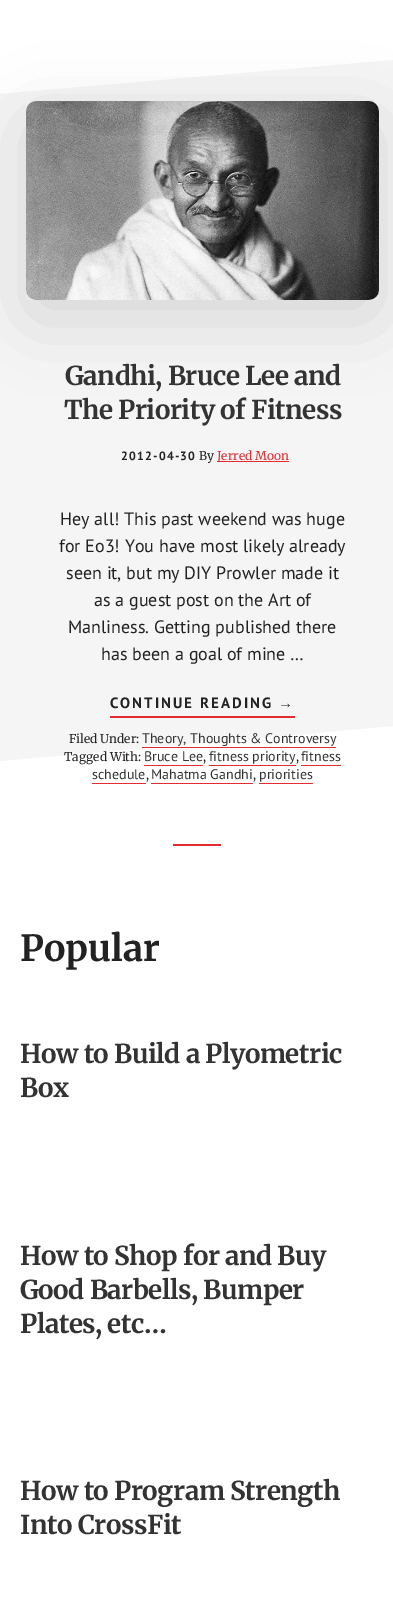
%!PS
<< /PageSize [393 1614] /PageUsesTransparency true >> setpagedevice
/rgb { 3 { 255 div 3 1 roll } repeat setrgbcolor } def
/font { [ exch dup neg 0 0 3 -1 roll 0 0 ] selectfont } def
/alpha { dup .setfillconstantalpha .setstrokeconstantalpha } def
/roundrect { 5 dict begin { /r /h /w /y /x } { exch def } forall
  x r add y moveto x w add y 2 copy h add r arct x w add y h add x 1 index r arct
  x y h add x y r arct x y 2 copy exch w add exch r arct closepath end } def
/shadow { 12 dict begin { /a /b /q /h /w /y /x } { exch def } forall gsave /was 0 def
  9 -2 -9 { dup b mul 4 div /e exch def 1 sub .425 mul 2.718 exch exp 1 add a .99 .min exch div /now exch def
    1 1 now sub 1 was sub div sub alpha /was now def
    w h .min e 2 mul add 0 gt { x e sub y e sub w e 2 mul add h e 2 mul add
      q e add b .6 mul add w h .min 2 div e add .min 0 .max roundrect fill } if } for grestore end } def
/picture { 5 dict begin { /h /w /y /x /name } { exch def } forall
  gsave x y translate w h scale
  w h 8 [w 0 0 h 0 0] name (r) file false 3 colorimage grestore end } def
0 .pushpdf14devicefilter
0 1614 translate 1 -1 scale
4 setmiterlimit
255 255 255 rgb
0 0 393 1614 rectfill
245 245 245 rgb
0 94 moveto 393 60 lineto 393 503 lineto 0 537 lineto closepath fill
0 317 moveto 393 283 lineto 393 726 lineto 0 761 lineto closepath fill
0 0 0 rgb
26 120 353 199 10 35 0.12 shadow
(img/1.rgb) 26 101 353 199 picture
[
  [217 461 72 1 226 44 47]
  [110 716 185 2 226 44 47]
  [142 747 194 1 226 44 47]
  [144 765 59 1 226 44 47]
  [209 765 87 1 226 44 47]
  [301 765 40 1 226 44 47]
  [92 783 54 1 226 44 47]
  [151 783 102 1 226 44 47]
  [259 783 54 1 226 44 47]
  [173 844 48 2 226 44 47]
] { aload pop rgb rectfill } forall
/Merriweather-Bold 26 font
51 51 51 rgb
65 385 moveto -0.5 0 (Gandhi, Bruce Lee and) ashow
64 419 moveto -0.5 0 (The Priority of Fitness) ashow
/PTSans-Bold 12 font
34 34 34 rgb
121 460 moveto 1.25 0 (2012-04-30) ashow
/Merriweather-Regular 12 font
199 460 moveto (By) show
226 44 47 rgb
217 460 moveto (Jerred Moon) show
/PTSans-Regular 18 font
34 34 34 rgb
[
  [(Hey all! This past weekend was huge) 60 525]
  [(for Eo3! You have most likely already) 59 552]
  [(seen it, but my DIY Prowler made it) 66 579]
  [(as a guest post on the Art of) 94 606]
  [(Manliness. Getting published there) 68 633]
  [(has been a goal of mine …) 101 660]
] { aload pop moveto show } forall
/PTSans-Bold 15 font
110 708 moveto 2 0 (CONTINUE READING) ashow
/LiberationSans-Bold 15 font
278 708 moveto 2 0 (→) ashow
/Merriweather-Regular 12 font
69 743 moveto (Filed Under:) show
/PTSans-Regular 14 font
51 51 51 rgb
142 743 moveto (Theory, Thoughts & Controversy) show
/Merriweather-Regular 12 font
34 34 34 rgb
64 761 moveto (Tagged With:) show
/PTSans-Regular 14 font
51 51 51 rgb
144 761 moveto (Bruce Lee) show
/Merriweather-Regular 12 font
34 34 34 rgb
203 761 moveto (,) show
/PTSans-Regular 14 font
51 51 51 rgb
209 761 moveto (fitness priority) show
/Merriweather-Regular 12 font
34 34 34 rgb
296 761 moveto (,) show
/PTSans-Regular 14 font
51 51 51 rgb
301 761 moveto (fitness) show
92 779 moveto (schedule) show
/Merriweather-Regular 12 font
34 34 34 rgb
146 779 moveto (,) show
/PTSans-Regular 14 font
51 51 51 rgb
151 779 moveto (Mahatma Gandhi) show
/Merriweather-Regular 12 font
34 34 34 rgb
253 779 moveto (,) show
/PTSans-Regular 14 font
51 51 51 rgb
259 779 moveto (priorities) show
/Merriweather-Bold 36 font
34 34 34 rgb
20 961 moveto (Popular) show
/Merriweather-Bold 26 font
51 51 51 rgb
20 1063 moveto -0.5 0 (How to Build a Plyometric) ashow
20 1097 moveto -0.5 0 (Box) ashow
20 1265 moveto -0.5 0 (How to Shop for and Buy) ashow
20 1299 moveto -0.5 0 (Good Barbells, Bumper) ashow
20 1333 moveto -0.5 0 (Plates, etc…) ashow
20 1500 moveto -0.5 0 (How to Program Strength) ashow
20 1534 moveto -0.5 0 (Into CrossFit) ashow
.poppdf14devicefilter showpage
